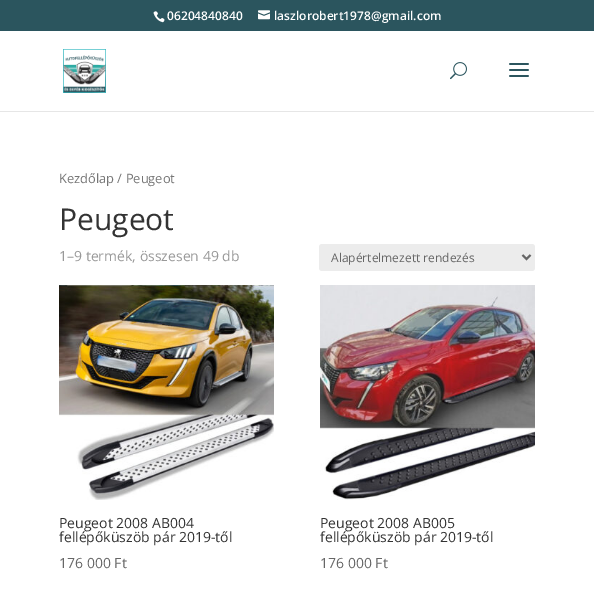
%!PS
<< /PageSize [594 607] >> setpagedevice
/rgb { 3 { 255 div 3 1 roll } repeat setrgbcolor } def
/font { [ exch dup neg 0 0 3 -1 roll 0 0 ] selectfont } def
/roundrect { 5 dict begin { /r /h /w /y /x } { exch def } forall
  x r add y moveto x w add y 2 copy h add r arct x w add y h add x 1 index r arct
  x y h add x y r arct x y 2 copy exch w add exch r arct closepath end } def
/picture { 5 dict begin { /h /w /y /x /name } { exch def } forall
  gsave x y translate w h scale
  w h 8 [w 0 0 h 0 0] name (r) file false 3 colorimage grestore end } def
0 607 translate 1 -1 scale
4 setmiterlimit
255 255 255 rgb
0 0 594 607 rectfill
43 85 94 rgb
0 0 594 31 rectfill
(img/1.rgb) 153 11 12 12 picture
(img/2.rgb) 258 10 12 10 picture
230 230 230 rgb
0 111 594 1 rectfill
(img/3.rgb) 63 49 43 44 picture
(img/4.rgb) 450 62 17 18 picture
(img/5.rgb) 509 63 20 14 picture
236 236 236 rgb
319 244 216 27 3 roundrect fill
102 102 102 rgb
2 setlinewidth
522.5 255 moveto 526.5 259 lineto 530.5 255 lineto stroke
(img/6.rgb) 59 285 215 215 picture
(img/7.rgb) 320 285 215 215 picture
/OpenSans-SemiBold 12 font
255 255 255 rgb
167 20 moveto (06204840840) show
274 20 moveto (laszlorobert1978@gmail.com) show
/OpenSans-Regular 12.9 font
118 118 118 rgb
59 183 moveto (Kezdőlap / Peugeot) show
/OpenSans-Regular 30 font
51 51 51 rgb
59 230 moveto (Peugeot) show
/OpenSans-Regular 14 font
153 153 153 rgb
59 261 moveto (1–9 termék, összesen 49 db) show
/OpenSans-Regular 12 font
102 102 102 rgb
331 262 moveto (Alapértelmezett rendezés) show
/OpenSans-Regular 14 font
51 51 51 rgb
59 528 moveto (Peugeot 2008 AB004) show
59 542 moveto (fellépőküszöb pár 2019-től) show
102 102 102 rgb
59 568 moveto (176 000 Ft) show
51 51 51 rgb
320 528 moveto (Peugeot 2008 AB005) show
320 542 moveto (fellépőküszöb pár 2019-től) show
102 102 102 rgb
320 568 moveto (176 000 Ft) show
showpage
